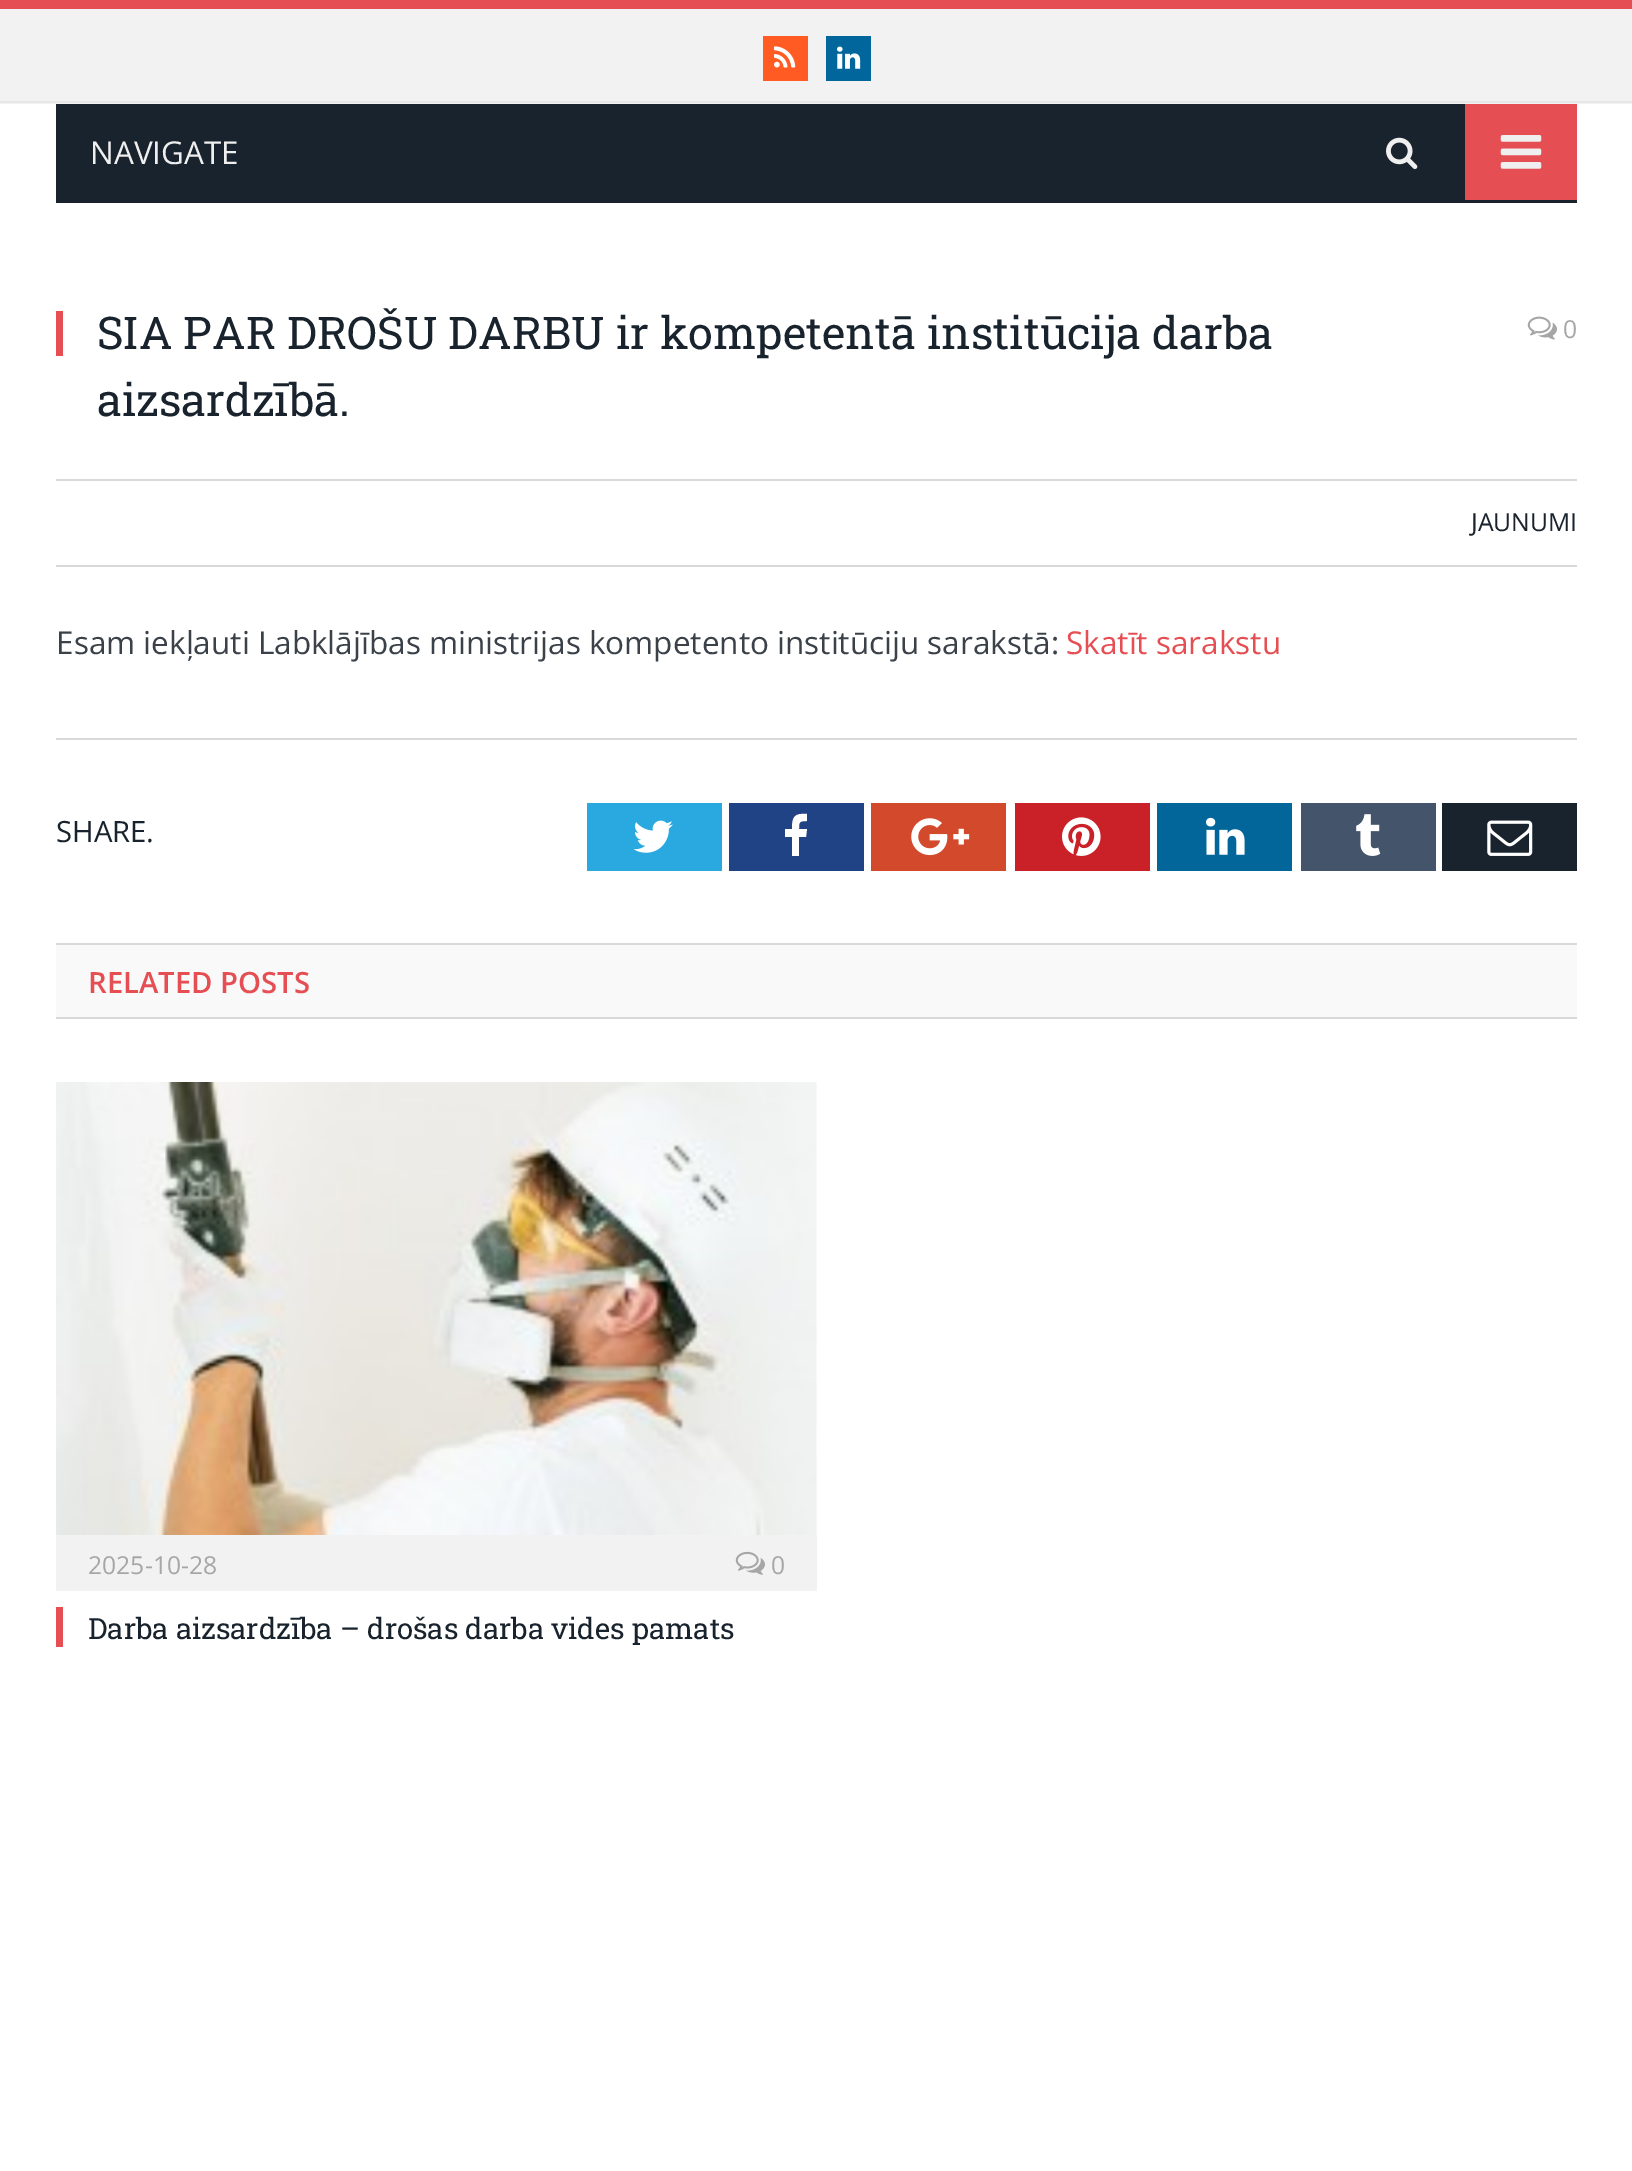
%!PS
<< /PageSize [1632 2171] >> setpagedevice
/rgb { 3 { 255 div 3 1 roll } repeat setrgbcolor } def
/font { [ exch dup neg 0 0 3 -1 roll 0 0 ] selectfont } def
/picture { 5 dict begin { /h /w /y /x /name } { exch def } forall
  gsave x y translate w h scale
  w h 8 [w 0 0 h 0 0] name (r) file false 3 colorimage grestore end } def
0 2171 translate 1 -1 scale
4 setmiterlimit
255 255 255 rgb
0 0 1632 2171 rectfill
[
  [0 9 1632 95 242 242 242]
  [0 0 1632 9 229 78 83]
  [0 101 1632 2 231 231 231]
  [763 36 45 45 255 91 34]
] { aload pop rgb rectfill } forall
(img/1.rgb) 774 46 22 22 picture
1 102 156 rgb
826 36 45 45 rectfill
(img/2.rgb) 837 46 24 23 picture
25 35 45 rgb
56 104 1521 99 rectfill
(img/3.rgb) 1386 137 32 32 picture
229 78 83 rgb
1465 104 112 96 rectfill
(img/4.rgb) 1500 135 42 34 picture
56 311 7 45 rectfill
(img/5.rgb) 1527 316 30 24 picture
[
  [56 479 1521 2 217 217 217]
  [56 565 1521 2 217 217 217]
  [56 738 1521 2 217 217 217]
  [587 803 135 68 42 169 224]
] { aload pop rgb rectfill } forall
(img/6.rgb) 633 820 40 33 picture
32 67 133 rgb
729 803 135 68 rectfill
255 255 255 rgb
807 814 moveto 794 813 792 817 792 829 curveto 785 829 lineto 785 837 lineto 792 837 lineto 792 856 lineto 799 856 lineto 799 837 lineto 806 837 lineto 807 829 lineto 799 829 lineto 799 822 799 821 807 821 curveto closepath fill
211 73 44 rgb
871 803 135 68 rectfill
(img/7.rgb) 911 818 59 38 picture
202 33 40 rgb
1015 803 135 68 rectfill
(img/8.rgb) 1062 817 39 39 picture
2 102 154 rgb
1157 803 135 68 rectfill
(img/9.rgb) 1206 817 39 38 picture
68 84 107 rgb
1301 803 135 68 rectfill
(img/10.rgb) 1356 814 25 42 picture
25 35 45 rgb
1442 803 135 68 rectfill
(img/11.rgb) 1487 820 46 36 picture
[
  [56 945 1521 72 249 249 249]
  [56 943 1521 2 217 217 217]
  [56 1017 1521 2 217 217 217]
] { aload pop rgb rectfill } forall
(img/12.rgb) 56 1082 761 453 picture
242 242 242 rgb
56 1535 761 56 rectfill
(img/13.rgb) 735 1551 30 24 picture
229 78 83 rgb
56 1607 7 40 rectfill
/OpenSans-Regular 31.5 font
239 239 239 rgb
90 164 moveto (NAVIGATE) show
/RobotoSlab-Regular 45 font
25 35 45 rgb
97 349 moveto (SIA PAR DROŠU DARBU ir kompetentā institūcija darba) show
97 416 moveto (aizsardzībā.) show
/OpenSans-Regular 24.75 font
166 166 166 rgb
1563 338 moveto (0) show
25 35 45 rgb
1471 531 moveto (JAUNUMI) show
/OpenSans-Regular 31.5 font
58 65 73 rgb
56 654 moveto (Esam iekļauti Labklājības ministrijas kompetento institūciju sarakstā:) show
229 78 83 rgb
1066 654 moveto (Skatīt sarakstu) show
/OpenSans-Regular 29.25 font
25 35 45 rgb
56 842 moveto (SHARE.) show
/OpenSans-SemiBold 29.25 font
229 78 83 rgb
88 993 moveto (RELATED POSTS) show
/OpenSans-Regular 24.75 font
166 166 166 rgb
88 1574 moveto (2025-10-28) show
771 1574 moveto (0) show
/RobotoSlab-Regular 29.25 font
25 35 45 rgb
88 1639 moveto (Darba aizsardzība – drošas darba vides pamats) show
showpage
